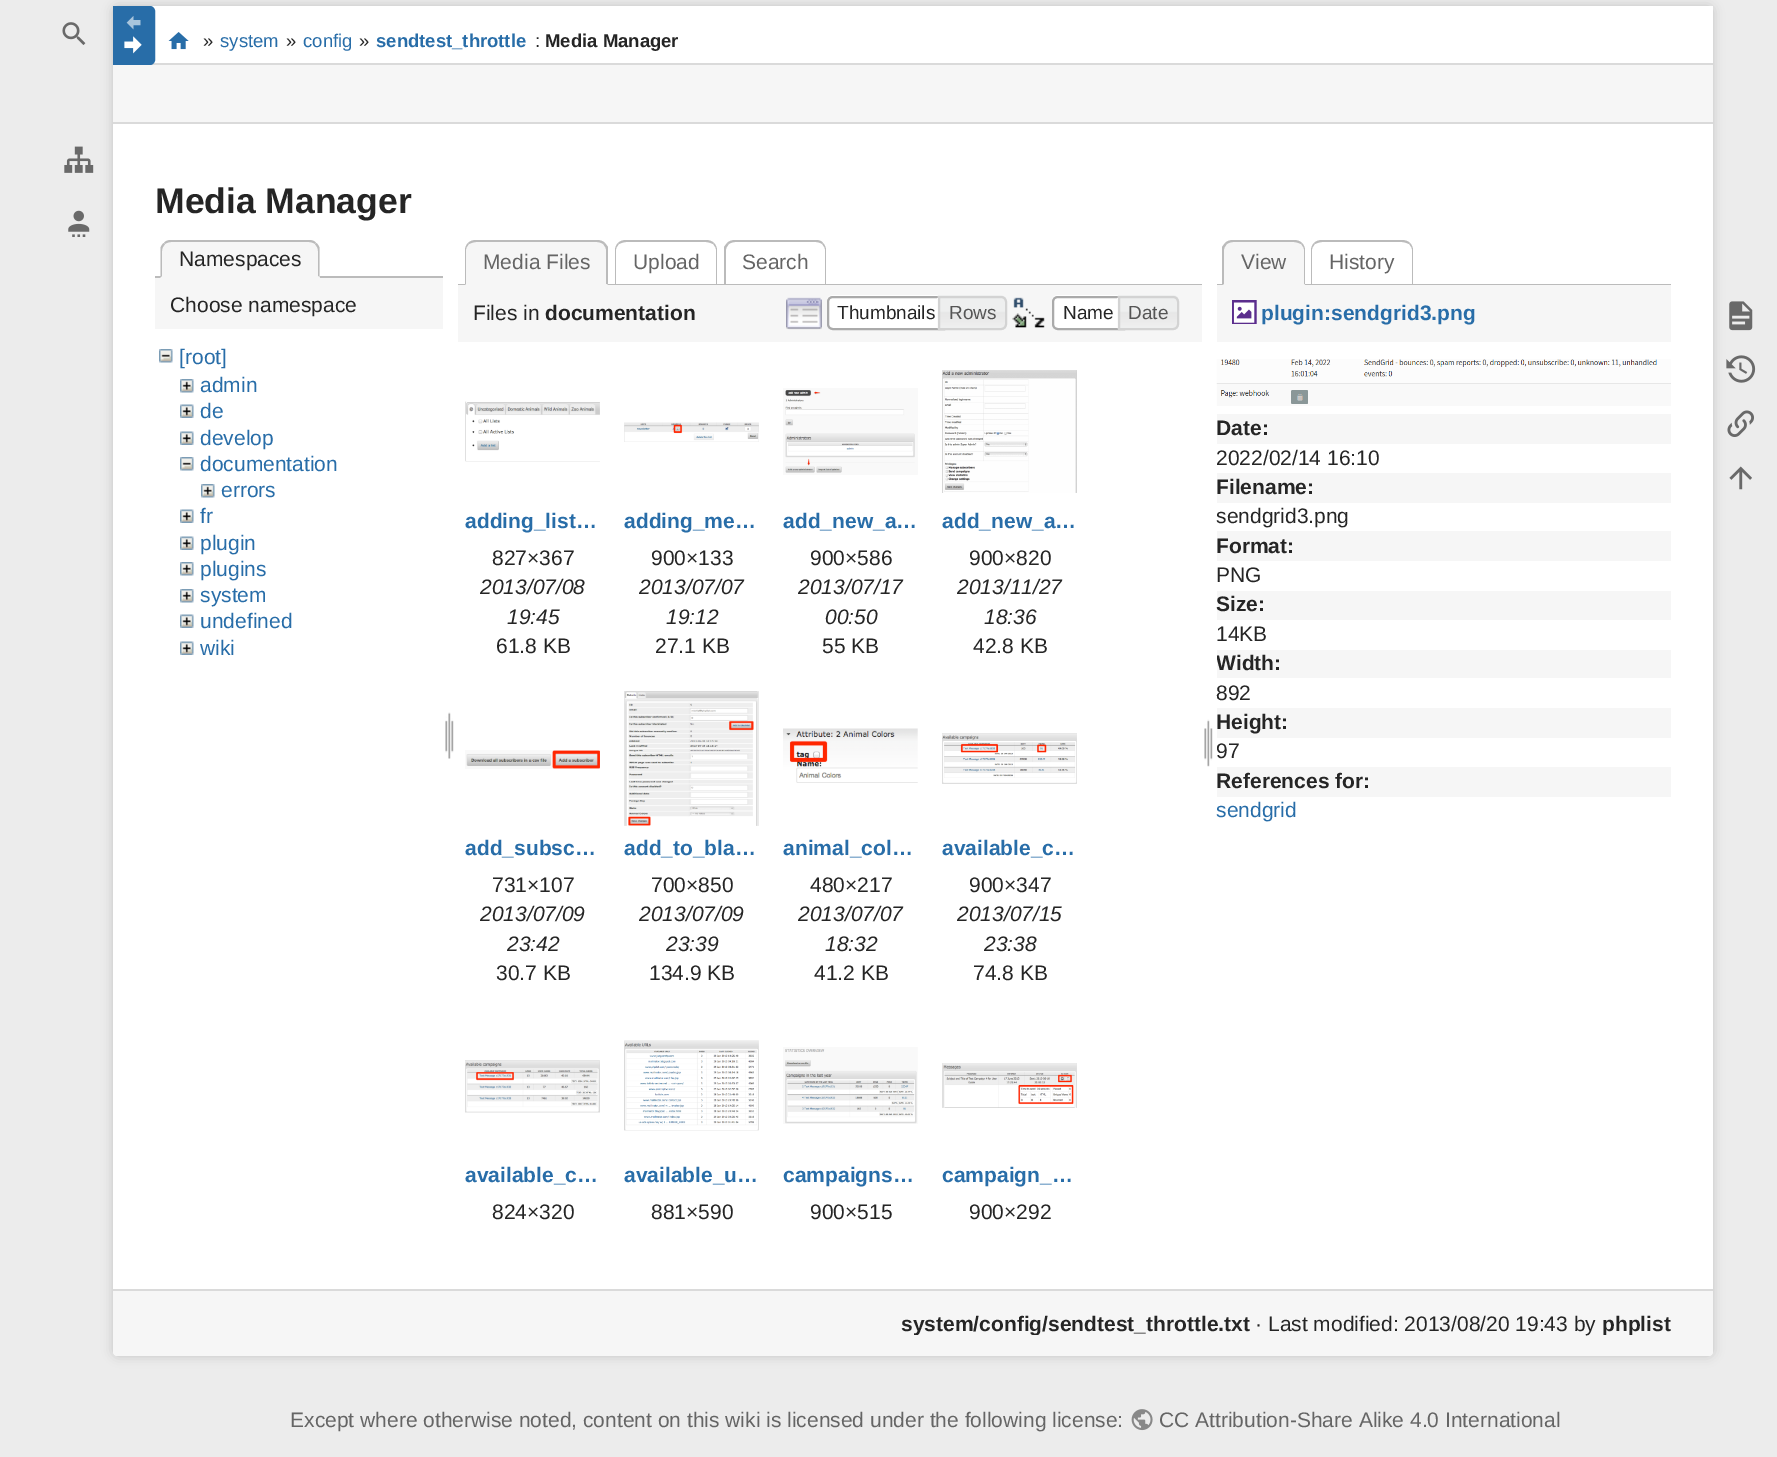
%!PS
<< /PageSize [1777 1457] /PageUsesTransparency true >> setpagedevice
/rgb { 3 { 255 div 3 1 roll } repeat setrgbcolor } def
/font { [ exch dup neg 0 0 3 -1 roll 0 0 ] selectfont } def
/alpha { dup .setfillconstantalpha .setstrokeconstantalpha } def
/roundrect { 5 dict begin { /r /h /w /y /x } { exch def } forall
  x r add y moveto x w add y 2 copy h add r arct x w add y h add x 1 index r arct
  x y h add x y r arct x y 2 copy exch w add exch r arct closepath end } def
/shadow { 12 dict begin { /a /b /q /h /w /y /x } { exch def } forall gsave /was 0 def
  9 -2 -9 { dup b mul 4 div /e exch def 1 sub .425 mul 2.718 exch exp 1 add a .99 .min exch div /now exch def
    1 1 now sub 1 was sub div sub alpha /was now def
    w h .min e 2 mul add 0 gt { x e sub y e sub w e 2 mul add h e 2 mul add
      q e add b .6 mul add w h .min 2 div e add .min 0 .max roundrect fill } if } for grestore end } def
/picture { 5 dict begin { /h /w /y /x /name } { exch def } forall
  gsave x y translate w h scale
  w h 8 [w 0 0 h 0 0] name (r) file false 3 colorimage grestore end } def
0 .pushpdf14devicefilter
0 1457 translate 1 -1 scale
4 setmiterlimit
236 236 236 rgb
0 0 1777 1457 rectfill
(img/1.rgb) 62 22 24 23 picture
(img/2.rgb) 64 146 30 27 picture
(img/3.rgb) 68 210 22 27 picture
153 153 153 rgb
113 6 1600 1350 5 5.5 0.5 shadow
255 255 255 rgb
113 6 moveto 1708 6 lineto 1711 6 1713 8 1713 11 curveto 1713 1351 lineto 1713 1354 1711 1356 1708 1356 curveto 118 1356 lineto 115 1356 113 1354 113 1351 curveto closepath fill
1709 6 4 4 rectfill
218 218 218 rgb
150 63 1563 2 rectfill
40 109 168 rgb
114 7 moveto 150 7 lineto 152 7 154 9 154 11 curveto 154 60 lineto 154 62 152 64 150 64 curveto 114 64 lineto closepath gsave fill grestore
2 setlinewidth
stroke
(img/4.rgb) 126 16 15 14 picture
(img/5.rgb) 124 36 18 18 picture
(img/6.rgb) 168 32 21 18 picture
(img/7.rgb) 1729 301 24 30 picture
(img/8.rgb) 1726 355 30 28 picture
(img/9.rgb) 1727 410 27 27 picture
(img/10.rgb) 1729 466 23 24 picture
[
  [113 65 1600 57 246 246 246]
  [113 122 1600 2 218 218 218]
  [155 276 288 2 187 187 187]
] { aload pop rgb rectfill } forall
246 246 246 rgb
172 240 moveto 309 240 lineto 315 240 320 245 320 251 curveto 320 278 lineto 161 278 lineto 161 251 lineto 161 245 166 240 172 240 curveto closepath fill
187 187 187 rgb
171 240 moveto 168 240 165 241 164 243 curveto 165 244 lineto 166 243 169 242 171 242 curveto 309 242 lineto 311 242 314 243 315 244 curveto 316 243 lineto 315 241 312 240 309 240 curveto closepath fill
316.5 243 moveto 318 244.5 319 246 319.5 248 curveto 319.5 277.5 lineto 318 276 lineto 318 251 lineto 318 248.5 317 246 315 244.5 curveto closepath fill
246 246 246 rgb
320 278 moveto 318 276 lineto 162 276 lineto 160 278 lineto closepath fill
187 187 187 rgb
160.5 277.5 moveto 160.5 248 lineto 161 246 162 244.5 163.5 243 curveto 165 244.5 lineto 163 246 162 248.5 162 251 curveto 162 276 lineto closepath fill
246 246 246 rgb
155 278 288 51 rectfill
(img/11.rgb) 159 349 14 14 picture
(img/12.rgb) 180 379 14 14 picture
(img/13.rgb) 180 404 14 14 picture
(img/13.rgb) 180 431 14 14 picture
(img/11.rgb) 180 457 14 14 picture
(img/12.rgb) 201 484 14 14 picture
(img/13.rgb) 180 509 14 14 picture
(img/13.rgb) 180 536 14 14 picture
(img/12.rgb) 180 562 14 14 picture
(img/12.rgb) 180 589 14 14 picture
(img/13.rgb) 180 614 14 14 picture
(img/13.rgb) 180 641 14 14 picture
(img/14.rgb) 445 712 9 47 picture
187 187 187 rgb
626 240 moveto 623 240 620 241 618 243 curveto 619 244 lineto 621 243 624 242 626 242 curveto 706 242 lineto 708 242 711 243 713 244 curveto 714 243 lineto 712 241 709 240 706 240 curveto closepath fill
717 285 moveto 717 250 lineto 717 248 716 245 714 243 curveto 713 244 lineto 715 246 716 248 716 250 curveto 716 284 lineto closepath fill
615 285 moveto 616 284 lineto 616 250 lineto 616 248 617 246 619 244 curveto 618 243 lineto 616 245 615 248 615 250 curveto closepath fill
735 240 moveto 732 240 729 241 727 243 curveto 729 244 lineto 730 243 733 242 735 242 curveto 816 242 lineto 818 242 821 243 822 244 curveto 823 243 lineto 822 241 819 240 816 240 curveto closepath fill
724 285 moveto 724 247 lineto 727 243 lineto 729 244 lineto 727 246 726 248 726 250 curveto 726 284 lineto closepath fill
458 284 744 1 rectfill
246 246 246 rgb
476 240 moveto 597 240 lineto 603 240 608 245 608 251 curveto 608 285 lineto 465 285 lineto 465 251 lineto 465 245 470 240 476 240 curveto closepath fill
187 187 187 rgb
476 240 moveto 473 240 470 241 468 243 curveto 469 244 lineto 471 243 474 242 476 242 curveto 597 242 lineto 599 242 602 243 603 244 curveto 605 243 lineto 603 241 600 240 597 240 curveto closepath fill
608 247 moveto 608 285 lineto 606 284 lineto 606 250 lineto 606 248 605 246 603 244 curveto 605 243 lineto closepath fill
246 246 246 rgb
608 285 moveto 606 284 lineto 466 284 lineto 465 285 lineto closepath fill
187 187 187 rgb
465 285 moveto 466 284 lineto 466 250 lineto 466 248 467 246 469 244 curveto 468 243 lineto 466 245 465 248 465 250 curveto closepath fill
823 243 moveto 825 245 826 248 826 250 curveto 826 284 lineto 825 284 lineto 825 250 lineto 825 248 824 246 822 244 curveto closepath fill
246 246 246 rgb
458 285 744 57 rectfill
(img/15.rgb) 786 297 36 33 picture
255 255 255 rgb
833 296 moveto 945 296 lineto 945 330 lineto 833 330 lineto 829.5 330 827 327.5 827 324 curveto 827 302 lineto 827 298.5 829.5 296 833 296 curveto closepath fill
(img/16.rgb) 827 295 111 5 picture
170 170 170 rgb
833 297 moveto 944 297 lineto 944 329 lineto 833 329 lineto 830 329 828 327 828 324 curveto 828 302 lineto 828 299 830 297 833 297 curveto closepath stroke
(img/17.rgb) 937 295 69 35 picture
211 211 211 rgb
939 297 moveto 1001 297 lineto 1004 297 1006 299 1006 302 curveto 1006 324 lineto 1006 327 1004 329 1001 329 curveto 939 329 lineto closepath stroke
(img/18.rgb) 1012 297 33 31 picture
255 255 255 rgb
1058 296 moveto 1125 296 lineto 1125 330 lineto 1058 330 lineto 1054.5 330 1052 327.5 1052 324 curveto 1052 302 lineto 1052 298.5 1054.5 296 1058 296 curveto closepath fill
(img/19.rgb) 1052 295 66 5 picture
170 170 170 rgb
1058 297 moveto 1124 297 lineto 1124 329 lineto 1058 329 lineto 1055 329 1053 327 1053 324 curveto 1053 302 lineto 1053 299 1055 297 1058 297 curveto closepath stroke
(img/20.rgb) 1117 295 62 35 picture
211 211 211 rgb
1119 297 moveto 1173 297 lineto 1176 297 1178 299 1178 302 curveto 1178 324 lineto 1178 327 1176 329 1173 329 curveto 1119 329 lineto closepath stroke
(img/21.rgb) 465 401 135 61 picture
(img/22.rgb) 624 422 135 20 picture
(img/23.rgb) 783 388 135 87 picture
(img/24.rgb) 942 370 135 123 picture
(img/25.rgb) 465 750 135 19 picture
(img/26.rgb) 624 691 135 135 picture
(img/27.rgb) 783 728 135 55 picture
(img/28.rgb) 942 733 135 51 picture
(img/29.rgb) 465 1060 135 53 picture
(img/30.rgb) 624 1040 135 91 picture
(img/31.rgb) 783 1047 135 77 picture
(img/32.rgb) 942 1063 135 45 picture
(img/33.rgb) 1204 719 9 48 picture
187 187 187 rgb
1322 240 moveto 1319 240 1316 241 1314 243 curveto 1315 244 lineto 1317 243 1320 242 1322 242 curveto 1402 242 lineto 1404 242 1407 243 1409 244 curveto 1410 243 lineto 1408 241 1405 240 1402 240 curveto closepath fill
1413 285 moveto 1413 250 lineto 1413 248 1412 245 1410 243 curveto 1409 244 lineto 1411 246 1412 248 1412 250 curveto 1412 284 lineto closepath fill
1311 285 moveto 1312 284 lineto 1312 250 lineto 1312 248 1313 246 1315 244 curveto 1314 243 lineto 1312 245 1311 248 1311 250 curveto closepath fill
1217 284 454 1 rectfill
246 246 246 rgb
1234 240 moveto 1294 240 lineto 1300 240 1305 245 1305 251 curveto 1305 285 lineto 1223 285 lineto 1223 251 lineto 1223 245 1228 240 1234 240 curveto closepath fill
187 187 187 rgb
1233 240 moveto 1230 240 1227 241 1225 243 curveto 1227 244 lineto 1228 243 1231 242 1233 242 curveto 1294 242 lineto 1296 242 1299 243 1301 244 curveto 1302 243 lineto 1300 241 1297 240 1294 240 curveto closepath fill
1305 285 moveto 1305 250 lineto 1305 248 1304 245 1302 243 curveto 1301 244 lineto 1303 246 1304 248 1304 250 curveto 1304 284 lineto closepath fill
246 246 246 rgb
1305 285 moveto 1304 284 lineto 1224 284 lineto 1222 285 lineto closepath fill
187 187 187 rgb
1222 285 moveto 1222 247 lineto 1225 243 lineto 1227 244 lineto 1225 246 1224 248 1224 250 curveto 1224 284 lineto closepath fill
246 246 246 rgb
1217 285 454 57 rectfill
(img/34.rgb) 1232 300 25 24 picture
(img/35.rgb) 1216 359 455 47 picture
[
  [1217 414 454 30 246 246 246]
  [1217 473 454 30 246 246 246]
  [1217 531 454 30 246 246 246]
  [1217 591 454 29 246 246 246]
  [1217 650 454 28 246 246 246]
  [1217 708 454 30 246 246 246]
  [1217 767 454 30 246 246 246]
] { aload pop rgb rectfill } forall
113 1289 moveto 1713 1289 lineto 1713 1351 lineto 1713 1354 1711 1356 1708 1356 curveto 118 1356 lineto 115 1356 113 1354 113 1351 curveto closepath fill
218 218 218 rgb
113 1289 1600 2 rectfill
(img/36.rgb) 1131 1409 22 22 picture
/LiberationSans-Regular 18.5 font
37 37 37 rgb
203 47 moveto (») show
40 109 168 rgb
220 47 moveto (system) show
37 37 37 rgb
286 47 moveto (») show
40 109 168 rgb
303 47 moveto (config) show
37 37 37 rgb
359 47 moveto (») show
/LiberationSans-Bold 18.5 font
40 109 168 rgb
376 47 moveto (sendtest_throttle) show
/LiberationSans-Regular 18.5 font
37 37 37 rgb
535 47 moveto (:) show
/LiberationSans-Bold 18.5 font
545 47 moveto (Media Manager) show
/LiberationSans-Bold 35.5 font
155 213 moveto (Media Manager) show
/LiberationSans-Regular 21 font
179 266 moveto (Namespaces) show
170 312 moveto (Choose namespace) show
40 109 168 rgb
[
  [([root]) 179 364]
  [(admin) 200 392]
  [(de) 200 418]
  [(develop) 200 445]
  [(documentation) 200 471]
  [(errors) 221 497]
  [(fr) 200 523]
  [(plugin) 200 550]
  [(plugins) 200 576]
  [(system) 200 602]
  [(undefined) 200 628]
  [(wiki) 200 655]
] { aload pop moveto show } forall
101 101 101 rgb
[
  [(Media Files) 483 269]
  [(Upload) 633 269]
  [(Search) 742 269]
] { aload pop moveto show } forall
37 37 37 rgb
473 320 moveto (Files in) show
/LiberationSans-Bold 21 font
545 320 moveto (documentation) show
/LiberationSans-Regular 19 font
837 319 moveto (Thumbnails) show
85 85 85 rgb
949 319 moveto (Rows) show
37 37 37 rgb
1063 319 moveto (Name) show
85 85 85 rgb
1128 319 moveto (Date) show
/LiberationSans-Bold 21 font
40 109 168 rgb
465 528 moveto (adding_list…) show
/LiberationSans-Regular 21 font
37 37 37 rgb
492 565 moveto (827×367) show
/LiberationSans-Italic 21 font
480 594 moveto (2013/07/08) show
507 624 moveto (19:45) show
/LiberationSans-Regular 21 font
496 653 moveto (61.8 KB) show
/LiberationSans-Bold 21 font
40 109 168 rgb
624 528 moveto (adding_me…) show
/LiberationSans-Regular 21 font
37 37 37 rgb
651 565 moveto (900×133) show
/LiberationSans-Italic 21 font
639 594 moveto (2013/07/07) show
666 624 moveto (19:12) show
/LiberationSans-Regular 21 font
655 653 moveto (27.1 KB) show
/LiberationSans-Bold 21 font
40 109 168 rgb
783 528 moveto (add_new_a…) show
/LiberationSans-Regular 21 font
37 37 37 rgb
810 565 moveto (900×586) show
/LiberationSans-Italic 21 font
798 594 moveto (2013/07/17) show
825 624 moveto (00:50) show
/LiberationSans-Regular 21 font
822 653 moveto (55 KB) show
/LiberationSans-Bold 21 font
40 109 168 rgb
942 528 moveto (add_new_a…) show
/LiberationSans-Regular 21 font
37 37 37 rgb
969 565 moveto (900×820) show
/LiberationSans-Italic 21 font
957 594 moveto (2013/11/27) show
984 624 moveto (18:36) show
/LiberationSans-Regular 21 font
973 653 moveto (42.8 KB) show
/LiberationSans-Bold 21 font
40 109 168 rgb
465 855 moveto (add_subsc…) show
/LiberationSans-Regular 21 font
37 37 37 rgb
492 892 moveto (731×107) show
/LiberationSans-Italic 21 font
480 921 moveto (2013/07/09) show
507 951 moveto (23:42) show
/LiberationSans-Regular 21 font
496 980 moveto (30.7 KB) show
/LiberationSans-Bold 21 font
40 109 168 rgb
624 855 moveto (add_to_bla…) show
/LiberationSans-Regular 21 font
37 37 37 rgb
651 892 moveto (700×850) show
/LiberationSans-Italic 21 font
639 921 moveto (2013/07/09) show
666 951 moveto (23:39) show
/LiberationSans-Regular 21 font
649 980 moveto (134.9 KB) show
/LiberationSans-Bold 21 font
40 109 168 rgb
783 855 moveto (animal_col…) show
/LiberationSans-Regular 21 font
37 37 37 rgb
810 892 moveto (480×217) show
/LiberationSans-Italic 21 font
798 921 moveto (2013/07/07) show
825 951 moveto (18:32) show
/LiberationSans-Regular 21 font
814 980 moveto (41.2 KB) show
/LiberationSans-Bold 21 font
40 109 168 rgb
942 855 moveto (available_c…) show
/LiberationSans-Regular 21 font
37 37 37 rgb
969 892 moveto (900×347) show
/LiberationSans-Italic 21 font
957 921 moveto (2013/07/15) show
984 951 moveto (23:38) show
/LiberationSans-Regular 21 font
973 980 moveto (74.8 KB) show
/LiberationSans-Bold 21 font
40 109 168 rgb
465 1182 moveto (available_c…) show
/LiberationSans-Regular 21 font
37 37 37 rgb
492 1219 moveto (824×320) show
/LiberationSans-Bold 21 font
40 109 168 rgb
624 1182 moveto (available_u…) show
/LiberationSans-Regular 21 font
37 37 37 rgb
651 1219 moveto (881×590) show
/LiberationSans-Bold 21 font
40 109 168 rgb
783 1182 moveto (campaigns…) show
/LiberationSans-Regular 21 font
37 37 37 rgb
810 1219 moveto (900×515) show
/LiberationSans-Bold 21 font
40 109 168 rgb
942 1182 moveto (campaign_…) show
/LiberationSans-Regular 21 font
37 37 37 rgb
969 1219 moveto (900×292) show
101 101 101 rgb
1241 269 moveto (View) show
1329 269 moveto (History) show
/LiberationSans-Bold 21 font
40 109 168 rgb
1261 320 moveto (plugin:sendgrid3.png) show
37 37 37 rgb
1216 435 moveto (Date:) show
/LiberationSans-Regular 21 font
1216 465 moveto (2022/02/14 16:10) show
/LiberationSans-Bold 21 font
1216 494 moveto (Filename:) show
/LiberationSans-Regular 21 font
1216 523 moveto (sendgrid3.png) show
/LiberationSans-Bold 21 font
1216 553 moveto (Format:) show
/LiberationSans-Regular 21 font
1216 582 moveto (PNG) show
/LiberationSans-Bold 21 font
1216 611 moveto (Size:) show
/LiberationSans-Regular 21 font
1216 641 moveto (14KB) show
gsave
1217 357 454 875 rectclip
/LiberationSans-Bold 21 font
1216 670 moveto (Width:) show
grestore
1216 700 moveto (892) show
/LiberationSans-Bold 21 font
1216 729 moveto (Height:) show
/LiberationSans-Regular 21 font
1216 758 moveto (97) show
/LiberationSans-Bold 21 font
1216 788 moveto (References for:) show
/LiberationSans-Regular 21 font
40 109 168 rgb
1216 817 moveto (sendgrid) show
gsave
900 1311 350 24 rectclip
/LiberationSans-Bold 21 font
37 37 37 rgb
901 1331 moveto (system/config/sendtest_throttle.txt) show
grestore
37 37 37 rgb
1255 1331 moveto (· Last modified: 2013/08/20 19:43 by) show
gsave
1602 1311 69 24 rectclip
/LiberationSans-Bold 21 font
1602 1331 moveto (phplist) show
grestore
101 101 101 rgb
290 1427 moveto (Except where otherwise noted, content on this wiki is licensed under the following license:) show
1159 1427 moveto (CC Attribution-Share Alike 4.0 International) show
.poppdf14devicefilter showpage
